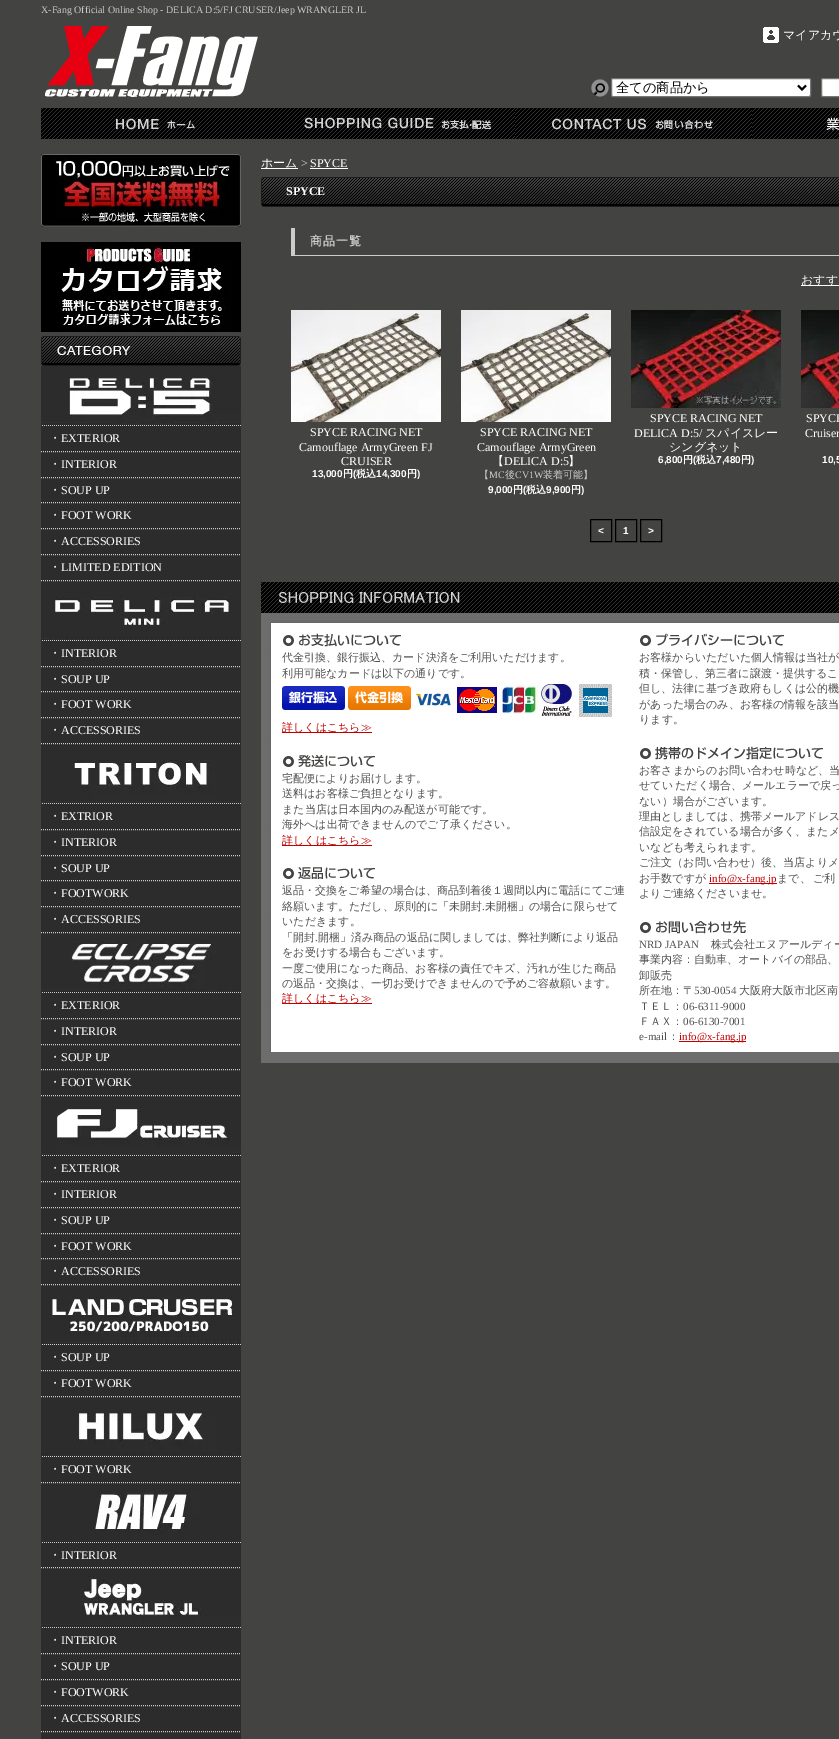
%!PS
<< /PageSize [839 1739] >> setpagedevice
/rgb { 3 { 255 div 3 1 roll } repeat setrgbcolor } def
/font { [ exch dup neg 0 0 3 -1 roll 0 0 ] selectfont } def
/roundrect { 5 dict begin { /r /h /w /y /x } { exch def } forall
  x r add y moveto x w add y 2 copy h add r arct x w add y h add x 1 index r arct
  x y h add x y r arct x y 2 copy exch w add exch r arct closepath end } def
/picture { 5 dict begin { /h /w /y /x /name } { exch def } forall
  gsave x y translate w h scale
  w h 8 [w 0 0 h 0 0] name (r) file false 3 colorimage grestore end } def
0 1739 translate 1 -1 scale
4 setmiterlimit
67 67 65 rgb
0 0 839 1739 rectfill
(img/1.rgb) 45 26 213 71 picture
(img/2.rgb) 763 27 16 16 picture
(img/3.rgb) 591 79 18 18 picture
255 255 255 rgb
611.5 78.5 199 18 1.5 roundrect gsave fill grestore
118 118 118 rgb
stroke
0 0 0 rgb
2 setlinewidth
798 85.5 moveto 802 89.5 lineto 806 85.5 lineto stroke
255 255 255 rgb
821.5 78.5 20 18 1.5 roundrect gsave fill grestore
118 118 118 rgb
1 setlinewidth
stroke
(img/4.rgb) 41 108 237 31 picture
(img/5.rgb) 278 108 237 31 picture
(img/6.rgb) 515 108 237 31 picture
(img/7.rgb) 752 108 87 31 picture
(img/8.rgb) 41 154 200 73 picture
(img/9.rgb) 41 242 200 90 picture
(img/10.rgb) 41 336 200 30 picture
(img/11.rgb) 41 366 200 60 picture
44 44 44 rgb
41 426 200 1313 rectfill
204 204 204 rgb
[1 1] 0 setdash
41 451.5 moveto 241 451.5 lineto stroke
41 477.5 moveto 241 477.5 lineto stroke
41 502.5 moveto 241 502.5 lineto stroke
41 528.5 moveto 241 528.5 lineto stroke
41 554.5 moveto 241 554.5 lineto stroke
41 580.5 moveto 241 580.5 lineto stroke
(img/12.rgb) 41 597 200 44 picture
41 666.5 moveto 241 666.5 lineto stroke
41 691.5 moveto 241 691.5 lineto stroke
41 717.5 moveto 241 717.5 lineto stroke
41 743.5 moveto 241 743.5 lineto stroke
(img/13.rgb) 41 760 200 44 picture
41 829.5 moveto 241 829.5 lineto stroke
41 855.5 moveto 241 855.5 lineto stroke
41 880.5 moveto 241 880.5 lineto stroke
41 906.5 moveto 241 906.5 lineto stroke
41 932.5 moveto 241 932.5 lineto stroke
(img/14.rgb) 41 941 200 52 picture
41 1018.5 moveto 241 1018.5 lineto stroke
41 1044.5 moveto 241 1044.5 lineto stroke
41 1069.5 moveto 241 1069.5 lineto stroke
41 1095.5 moveto 241 1095.5 lineto stroke
(img/15.rgb) 42 1108 199 48 picture
41 1181.5 moveto 241 1181.5 lineto stroke
41 1207.5 moveto 241 1207.5 lineto stroke
41 1233.5 moveto 241 1233.5 lineto stroke
41 1258.5 moveto 241 1258.5 lineto stroke
41 1284.5 moveto 241 1284.5 lineto stroke
(img/16.rgb) 41 1297 200 48 picture
41 1370.5 moveto 241 1370.5 lineto stroke
41 1396.5 moveto 241 1396.5 lineto stroke
(img/17.rgb) 41 1413 200 44 picture
41 1482.5 moveto 241 1482.5 lineto stroke
(img/18.rgb) 42 1491 199 52 picture
41 1567.5 moveto 241 1567.5 lineto stroke
(img/19.rgb) 41 1576 200 52 picture
41 1653.5 moveto 241 1653.5 lineto stroke
41 1679.5 moveto 241 1679.5 lineto stroke
41 1705.5 moveto 241 1705.5 lineto stroke
41 1731.5 moveto 241 1731.5 lineto stroke
255 255 255 rgb
261 168 37 1 rectfill
310 168 38 1 rectfill
(img/20.rgb) 261 177 578 30 picture
[
  [291 255 548 1 204 204 204]
  [291 228 4 28 204 204 204]
  [801 285 38 1 255 255 255]
] { aload pop rgb rectfill } forall
(img/21.rgb) 291 310 150 112 picture
(img/21.rgb) 461 310 150 112 picture
(img/22.rgb) 631 310 150 98 picture
(img/23.rgb) 801 310 38 98 picture
0 0 0 rgb
[] 0 setdash
590.5 519.5 21 22 rectstroke
615.5 519.5 21 22 rectstroke
640.5 519.5 21 22 rectstroke
(img/24.rgb) 261 582 578 41 picture
(img/25.rgb) 261 623 578 429 picture
(img/26.rgb) 283 633 118 14 picture
(img/27.rgb) 282 681 331 39 picture
193 0 0 rgb
282 732 90 1 rectfill
(img/28.rgb) 283 755 92 12 picture
282 845 90 1 rectfill
(img/29.rgb) 283 867 92 12 picture
282 1003 90 1 rectfill
(img/30.rgb) 640 633 144 13 picture
(img/31.rgb) 640 746 183 14 picture
709 883 68 1 rectfill
(img/32.rgb) 640 920 106 14 picture
679 1041 67 1 rectfill
109 109 109 rgb
261 1052 578 11 rectfill
/LiberationSerif-Regular 10 font
204 204 204 rgb
41 13 moveto (X-Fang Official Online Shop - DELICA D:5/FJ CRUSER/Jeep WRANGLER JL) show
/WenQuanYiZenHei-Medium 12 font
255 255 255 rgb
783 39 moveto (マイアカウ) show
/WenQuanYiZenHei-Medium 13.25 font
0 0 0 rgb
616 92 moveto (全ての商品から) show
/WenQuanYiZenHei-Medium 12 font
255 255 255 rgb
49 442 moveto (・) show
/LiberationSerif-Regular 12 font
61 442 moveto (EXTERIOR) show
/WenQuanYiZenHei-Medium 12 font
49 468 moveto (・) show
/LiberationSerif-Regular 12 font
61 468 moveto (INTERIOR) show
/WenQuanYiZenHei-Medium 12 font
49 494 moveto (・) show
/LiberationSerif-Regular 12 font
61 494 moveto (SOUP UP) show
/WenQuanYiZenHei-Medium 12 font
49 519 moveto (・) show
/LiberationSerif-Regular 12 font
61 519 moveto (FOOT WORK) show
/WenQuanYiZenHei-Medium 12 font
49 545 moveto (・) show
/LiberationSerif-Regular 12 font
61 545 moveto (ACCESSORIES) show
/WenQuanYiZenHei-Medium 12 font
49 571 moveto (・) show
/LiberationSerif-Regular 12 font
61 571 moveto (LIMITED EDITION) show
/WenQuanYiZenHei-Medium 12 font
49 657 moveto (・) show
/LiberationSerif-Regular 12 font
61 657 moveto (INTERIOR) show
/WenQuanYiZenHei-Medium 12 font
49 683 moveto (・) show
/LiberationSerif-Regular 12 font
61 683 moveto (SOUP UP) show
/WenQuanYiZenHei-Medium 12 font
49 708 moveto (・) show
/LiberationSerif-Regular 12 font
61 708 moveto (FOOT WORK) show
/WenQuanYiZenHei-Medium 12 font
49 734 moveto (・) show
/LiberationSerif-Regular 12 font
61 734 moveto (ACCESSORIES) show
/WenQuanYiZenHei-Medium 12 font
49 820 moveto (・) show
/LiberationSerif-Regular 12 font
61 820 moveto (EXTRIOR) show
/WenQuanYiZenHei-Medium 12 font
49 846 moveto (・) show
/LiberationSerif-Regular 12 font
61 846 moveto (INTERIOR) show
/WenQuanYiZenHei-Medium 12 font
49 872 moveto (・) show
/LiberationSerif-Regular 12 font
61 872 moveto (SOUP UP) show
/WenQuanYiZenHei-Medium 12 font
49 897 moveto (・) show
/LiberationSerif-Regular 12 font
61 897 moveto (FOOTWORK) show
/WenQuanYiZenHei-Medium 12 font
49 923 moveto (・) show
/LiberationSerif-Regular 12 font
61 923 moveto (ACCESSORIES) show
/WenQuanYiZenHei-Medium 12 font
49 1009 moveto (・) show
/LiberationSerif-Regular 12 font
61 1009 moveto (EXTERIOR) show
/WenQuanYiZenHei-Medium 12 font
49 1035 moveto (・) show
/LiberationSerif-Regular 12 font
61 1035 moveto (INTERIOR) show
/WenQuanYiZenHei-Medium 12 font
49 1061 moveto (・) show
/LiberationSerif-Regular 12 font
61 1061 moveto (SOUP UP) show
/WenQuanYiZenHei-Medium 12 font
49 1086 moveto (・) show
/LiberationSerif-Regular 12 font
61 1086 moveto (FOOT WORK) show
/WenQuanYiZenHei-Medium 12 font
49 1172 moveto (・) show
/LiberationSerif-Regular 12 font
61 1172 moveto (EXTERIOR) show
/WenQuanYiZenHei-Medium 12 font
49 1198 moveto (・) show
/LiberationSerif-Regular 12 font
61 1198 moveto (INTERIOR) show
/WenQuanYiZenHei-Medium 12 font
49 1224 moveto (・) show
/LiberationSerif-Regular 12 font
61 1224 moveto (SOUP UP) show
/WenQuanYiZenHei-Medium 12 font
49 1250 moveto (・) show
/LiberationSerif-Regular 12 font
61 1250 moveto (FOOT WORK) show
/WenQuanYiZenHei-Medium 12 font
49 1275 moveto (・) show
/LiberationSerif-Regular 12 font
61 1275 moveto (ACCESSORIES) show
/WenQuanYiZenHei-Medium 12 font
49 1361 moveto (・) show
/LiberationSerif-Regular 12 font
61 1361 moveto (SOUP UP) show
/WenQuanYiZenHei-Medium 12 font
49 1387 moveto (・) show
/LiberationSerif-Regular 12 font
61 1387 moveto (FOOT WORK) show
/WenQuanYiZenHei-Medium 12 font
49 1473 moveto (・) show
/LiberationSerif-Regular 12 font
61 1473 moveto (FOOT WORK) show
/WenQuanYiZenHei-Medium 12 font
49 1559 moveto (・) show
/LiberationSerif-Regular 12 font
61 1559 moveto (INTERIOR) show
/WenQuanYiZenHei-Medium 12 font
49 1644 moveto (・) show
/LiberationSerif-Regular 12 font
61 1644 moveto (INTERIOR) show
/WenQuanYiZenHei-Medium 12 font
49 1670 moveto (・) show
/LiberationSerif-Regular 12 font
61 1670 moveto (SOUP UP) show
/WenQuanYiZenHei-Medium 12 font
49 1696 moveto (・) show
/LiberationSerif-Regular 12 font
61 1696 moveto (FOOTWORK) show
/WenQuanYiZenHei-Medium 12 font
49 1722 moveto (・) show
/LiberationSerif-Regular 12 font
61 1722 moveto (ACCESSORIES) show
/WenQuanYiZenHei-Medium 12 font
261 167 moveto (ホーム) show
/LiberationSerif-Regular 12 font
204 204 204 rgb
301 167 moveto (>) show
255 255 255 rgb
310 167 moveto (SPYCE) show
/LiberationSerif-Bold 12 font
286 195 moveto (SPYCE) show
/WenQuanYiZenHei-Bold 12 font
204 204 204 rgb
310 245 moveto 1 0 (商品一覧) ashow
/WenQuanYiZenHei-Medium 12 font
255 255 255 rgb
801 284 moveto (おすす) show
/LiberationSerif-Regular 12 font
[
  [(SPYCE RACING NET) 310 436]
  [(Camouflage ArmyGreen FJ) 299 451]
  [(CRUISER) 341 465]
] { aload pop moveto show } forall
/LiberationSans-Bold 10 font
312 477 moveto (13,000) show
/WenQuanYiZenHei-Bold 10 font
343 477 moveto (円) show
/LiberationSans-Bold 10 font
353 477 moveto (\() show
/WenQuanYiZenHei-Bold 10 font
356 477 moveto (税込) show
/LiberationSans-Bold 10 font
376 477 moveto (14,300) show
/WenQuanYiZenHei-Bold 10 font
407 477 moveto (円) show
/LiberationSans-Bold 10 font
417 477 moveto (\)) show
/LiberationSerif-Regular 12 font
480 436 moveto (SPYCE RACING NET) show
477 451 moveto (Camouflage ArmyGreen) show
/WenQuanYiZenHei-Medium 12 font
492 465 moveto (【) show
/LiberationSerif-Regular 12 font
504 465 moveto (DELICA D:5) show
/WenQuanYiZenHei-Medium 12 font
568 465 moveto (】) show
/WenQuanYiZenHei-Medium 10 font
204 204 204 rgb
479 478 moveto (【) show
/LiberationSerif-Regular 10 font
489 478 moveto (MC) show
/WenQuanYiZenHei-Medium 10 font
505 478 moveto (後) show
/LiberationSerif-Regular 10 font
515 478 moveto (CV1W) show
/WenQuanYiZenHei-Medium 10 font
543 478 moveto (装着可能】) show
/LiberationSans-Bold 10 font
255 255 255 rgb
488 493 moveto (9,000) show
/WenQuanYiZenHei-Bold 10 font
513 493 moveto (円) show
/LiberationSans-Bold 10 font
523 493 moveto (\() show
/WenQuanYiZenHei-Bold 10 font
526 493 moveto (税込) show
/LiberationSans-Bold 10 font
546 493 moveto (9,900) show
/WenQuanYiZenHei-Bold 10 font
571 493 moveto (円) show
/LiberationSans-Bold 10 font
581 493 moveto (\)) show
/LiberationSerif-Regular 12 font
650 422 moveto (SPYCE RACING NET) show
634 437 moveto (DELICA D:5/) show
/WenQuanYiZenHei-Medium 12 font
705 437 moveto (スパイスレー) show
669 451 moveto (シングネット) show
/LiberationSans-Bold 10 font
658 463 moveto (6,800) show
/WenQuanYiZenHei-Bold 10 font
683 463 moveto (円) show
/LiberationSans-Bold 10 font
693 463 moveto (\() show
/WenQuanYiZenHei-Bold 10 font
696 463 moveto (税込) show
/LiberationSans-Bold 10 font
716 463 moveto (7,480) show
/WenQuanYiZenHei-Bold 10 font
741 463 moveto (円) show
/LiberationSans-Bold 10 font
751 463 moveto (\)) show
/LiberationSerif-Regular 12 font
806 422 moveto (SPYCE) show
805 437 moveto (Cruiser) show
/LiberationSans-Bold 10 font
[
  [(10,5) 822 463]
  [(<) 598 534]
  [(1) 623 534]
  [(>) 648 534]
] { aload pop moveto show } forall
/WenQuanYiZenHei-Medium 11 font
80 80 80 rgb
282 661 moveto (代金引換、銀行振込、カード決済をご利用いただけます。) show
282 677 moveto (利用可能なカードは以下の通りです。) show
193 0 0 rgb
282 731 moveto (詳しくはこちら≫) show
80 80 80 rgb
[
  [(宅配便によりお届けします。) 282 782]
  [(送料はお客様ご負担となります。) 282 797]
  [(また当店は日本国内のみ配送が可能です。) 282 813]
  [(海外へは出荷できませんのでご了承ください。) 282 828]
] { aload pop moveto show } forall
193 0 0 rgb
282 844 moveto (詳しくはこちら≫) show
80 80 80 rgb
282 894 moveto (返品・交換をご希望の場合は、商品到着後１週間以内に電話にてご連) show
282 910 moveto (絡願います。ただし、原則的に「未開封) show
/LiberationSerif-Regular 11 font
482 910 moveto (.) show
/WenQuanYiZenHei-Medium 11 font
[
  [(未開梱」の場合に限らせて) 485 910]
  [(いただきます。) 282 925]
  [(「開封) 282 941]
] { aload pop moveto show } forall
/LiberationSerif-Regular 11 font
315 941 moveto (.) show
/WenQuanYiZenHei-Medium 11 font
[
  [(開梱」済み商品の返品に関しましては、弊社判断により返品) 318 941]
  [(をお受けする場合もございます。) 282 956]
  [(一度ご使用になった商品、お客様の責任でキズ、汚れが生じた商品) 282 972]
  [(の返品・交換は、一切お受けできませんので予めご容赦願います。) 282 987]
] { aload pop moveto show } forall
193 0 0 rgb
282 1002 moveto (詳しくはこちら≫) show
80 80 80 rgb
[
  [(お客様からいただいた個人情報は当社が) 639 661]
  [(積・保管し、第三者に譲渡・提供するこ) 639 677]
  [(但し、法律に基づき政府もしくは公的機) 639 692]
  [(があった場合のみ、お客様の情報を該当) 639 708]
  [(ります。) 639 723]
  [(お客さまからのお問い合わせ時など、当) 639 774]
] { aload pop moveto show } forall
639 789 moveto -1 0 32 (せてい ただく場合、メールエラーで戻っ) widthshow
[
  [(ない）場合がございます。) 639 805]
  [(理由としましては、携帯メールアドレス) 639 820]
  [(信設定をされている場合が多く、またメ) 639 835]
  [(いなども考えられます。) 639 851]
  [(ご注文（お問い合わせ）後、当店よりメ) 639 866]
  [(お手数ですが) 639 882]
] { aload pop moveto show } forall
/LiberationSerif-Regular 11 font
193 0 0 rgb
709 882 moveto (info@x-fang.jp) show
/WenQuanYiZenHei-Medium 11 font
80 80 80 rgb
[
  [(まで、) 777 882]
  [(ご利) 813 882]
  [(よりご連絡くださいませ。) 639 897]
] { aload pop moveto show } forall
/LiberationSerif-Regular 11 font
639 948 moveto (NRD JAPAN) show
/WenQuanYiZenHei-Medium 11 font
[
  [(株式会社エヌアールディー) 711 948]
  [(事業内容：自動車、オートバイの部品、) 639 963]
  [(卸販売) 639 979]
  [(所在地：〒) 639 994]
] { aload pop moveto show } forall
/LiberationSerif-Regular 11 font
694 994 moveto (530-0054) show
/WenQuanYiZenHei-Medium 11 font
739 994 moveto (大阪府大阪市北区南) show
639 1010 moveto (ＴＥＬ：) show
/LiberationSerif-Regular 11 font
683 1010 moveto (06-6311-9000) show
/WenQuanYiZenHei-Medium 11 font
639 1025 moveto (ＦＡＸ：) show
/LiberationSerif-Regular 11 font
683 1025 moveto (06-6130-7001) show
639 1040 moveto (e-mail) show
/WenQuanYiZenHei-Medium 11 font
668 1040 moveto (：) show
/LiberationSerif-Regular 11 font
193 0 0 rgb
679 1040 moveto (info@x-fang.jp) show
showpage
